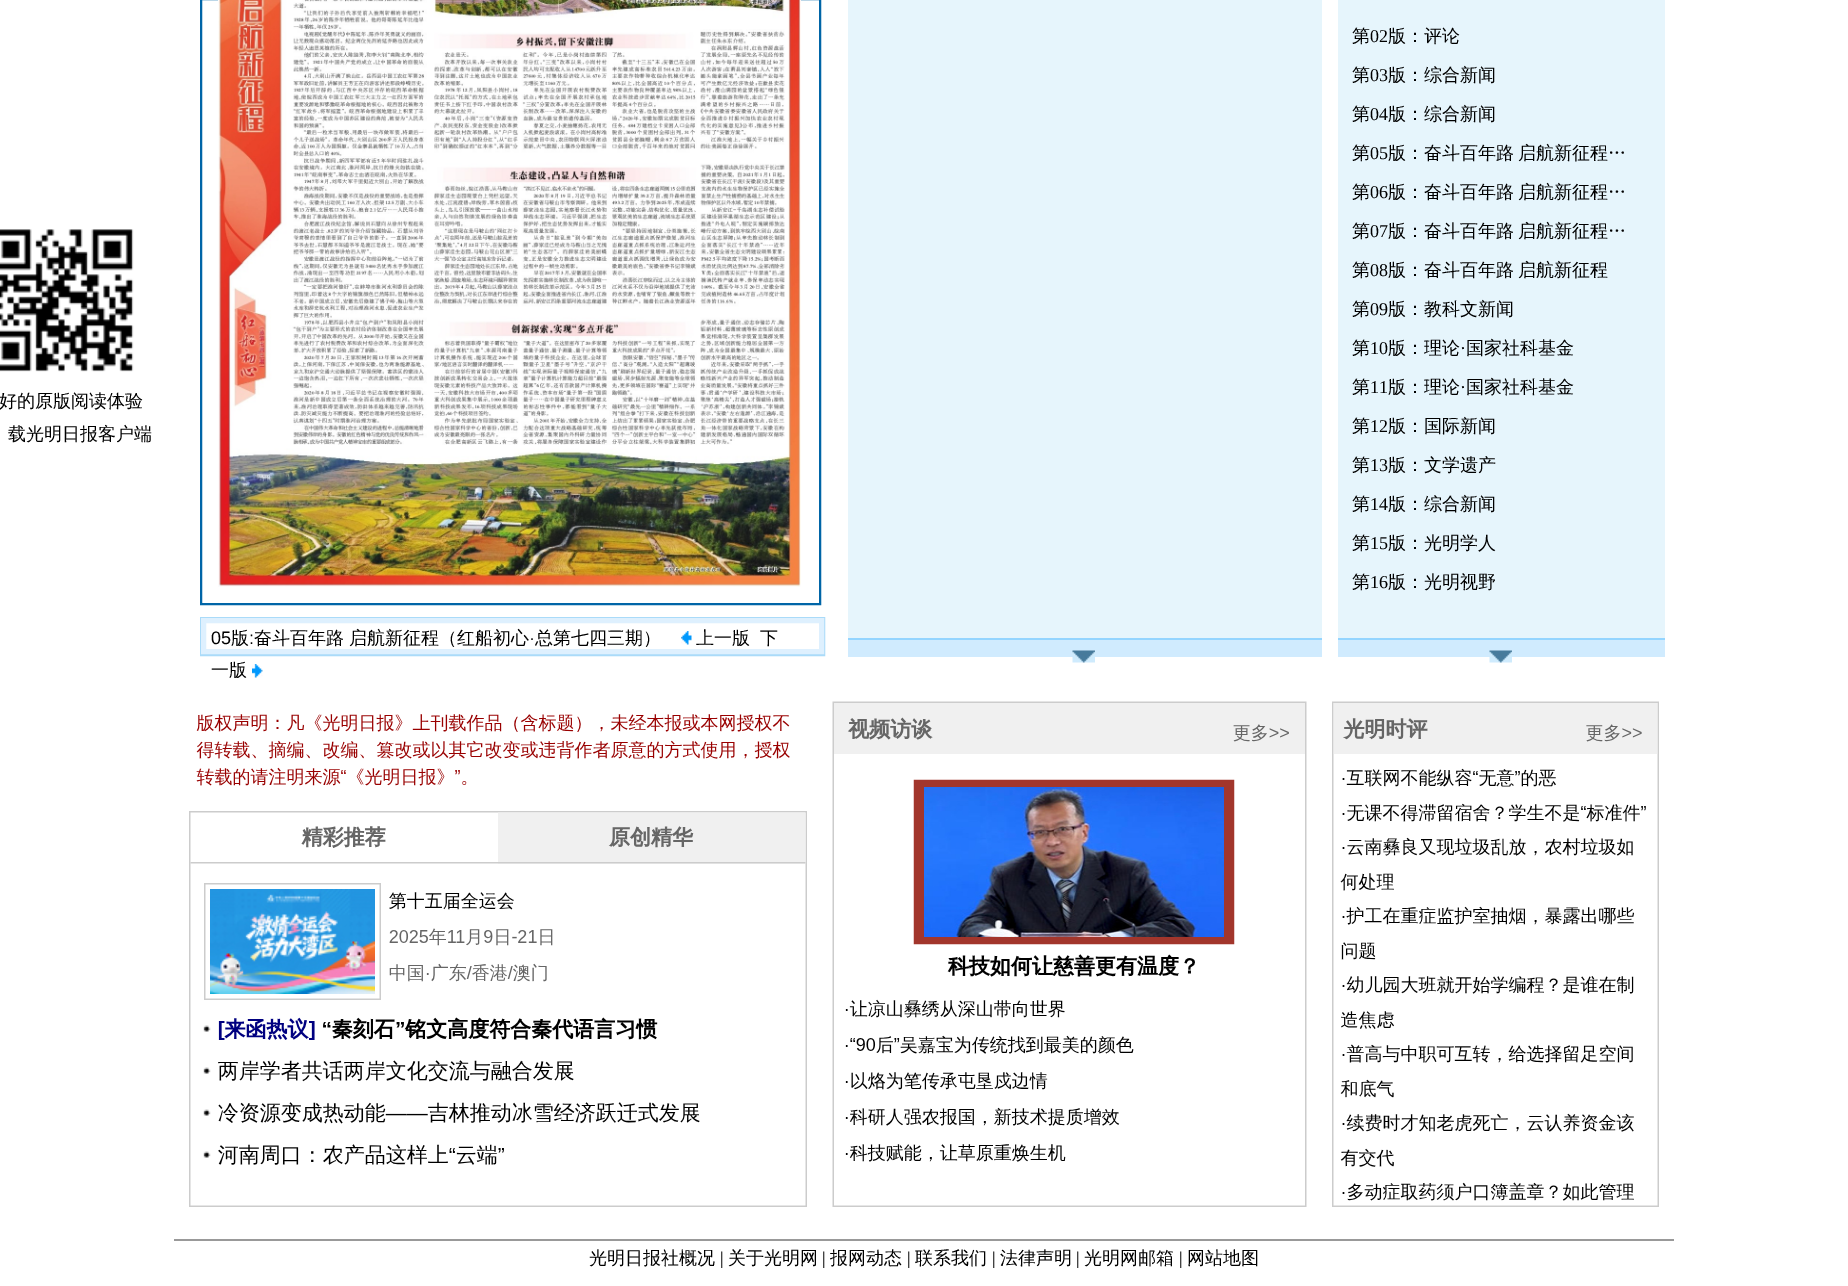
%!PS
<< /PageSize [1848 1286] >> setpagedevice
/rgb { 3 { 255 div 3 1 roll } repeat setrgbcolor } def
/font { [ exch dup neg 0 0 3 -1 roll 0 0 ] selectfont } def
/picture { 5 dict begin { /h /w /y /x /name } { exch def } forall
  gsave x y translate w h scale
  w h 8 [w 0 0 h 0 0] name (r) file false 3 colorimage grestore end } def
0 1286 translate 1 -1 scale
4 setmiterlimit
255 255 255 rgb
0 0 1848 1286 rectfill
(img/1.rgb) 0 229 134 143 picture
[
  [848 0 474 638 230 245 252]
  [848 640 474 17 208 235 254]
  [848 638 474 2 148 213 255]
] { aload pop rgb rectfill } forall
(img/2.rgb) 1072 650 23 13 picture
[
  [1338 0 327 638 230 245 252]
  [1338 640 327 17 208 235 254]
  [1338 638 327 2 148 213 255]
] { aload pop rgb rectfill } forall
(img/3.rgb) 1489 650 23 13 picture
0 101 167 rgb
2 setlinewidth
201 -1 619 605 rectstroke
(img/4.rgb) 218 0 583 587 picture
170 219 249 rgb
201 618 623 37 rectstroke
222 240 254 rgb
5 setlinewidth
203.5 620.5 618 31 rectstroke
(img/5.rgb) 681 631 11 14 picture
(img/6.rgb) 252 664 11 14 picture
(img/7.rgb) 189 701 1470 506 picture
153 153 153 rgb
174 1239 1500 2 rectfill
/WenQuanYiZenHei-Medium 18 font
0 0 0 rgb
[
  [(好的原版阅读体验) -1 407]
  [(载光明日报客户端) 8 440]
  [(第) 1352 42]
] { aload pop moveto show } forall
/LiberationSerif-Regular 18 font
1370 42 moveto (02) show
/WenQuanYiZenHei-Medium 18 font
1388 42 moveto (版：评论) show
1352 81 moveto (第) show
/LiberationSerif-Regular 18 font
1370 81 moveto (03) show
/WenQuanYiZenHei-Medium 18 font
1388 81 moveto (版：综合新闻) show
1352 120 moveto (第) show
/LiberationSerif-Regular 18 font
1370 120 moveto (04) show
/WenQuanYiZenHei-Medium 18 font
1388 120 moveto (版：综合新闻) show
1352 159 moveto (第) show
/LiberationSerif-Regular 18 font
1370 159 moveto (05) show
/WenQuanYiZenHei-Medium 18 font
1388 159 moveto -1 0 32 (版：奋斗百年路 启航新征程…) widthshow
1352 198 moveto (第) show
/LiberationSerif-Regular 18 font
1370 198 moveto (06) show
/WenQuanYiZenHei-Medium 18 font
1388 198 moveto -1 0 32 (版：奋斗百年路 启航新征程…) widthshow
1352 237 moveto (第) show
/LiberationSerif-Regular 18 font
1370 237 moveto (07) show
/WenQuanYiZenHei-Medium 18 font
1388 237 moveto -1 0 32 (版：奋斗百年路 启航新征程…) widthshow
1352 276 moveto (第) show
/LiberationSerif-Regular 18 font
1370 276 moveto (08) show
/WenQuanYiZenHei-Medium 18 font
1388 276 moveto -1 0 32 (版：奋斗百年路 启航新征程) widthshow
1352 315 moveto (第) show
/LiberationSerif-Regular 18 font
1370 315 moveto (09) show
/WenQuanYiZenHei-Medium 18 font
1388 315 moveto (版：教科文新闻) show
1352 354 moveto (第) show
/LiberationSerif-Regular 18 font
1370 354 moveto (10) show
/WenQuanYiZenHei-Medium 18 font
1388 354 moveto (版：理论) show
/LiberationSerif-Regular 18 font
1460 354 moveto (·) show
/WenQuanYiZenHei-Medium 18 font
1466 354 moveto (国家社科基金) show
1352 393 moveto (第) show
/LiberationSerif-Regular 18 font
1370 393 moveto (11) show
/WenQuanYiZenHei-Medium 18 font
1388 393 moveto (版：理论) show
/LiberationSerif-Regular 18 font
1460 393 moveto (·) show
/WenQuanYiZenHei-Medium 18 font
1466 393 moveto (国家社科基金) show
1352 432 moveto (第) show
/LiberationSerif-Regular 18 font
1370 432 moveto (12) show
/WenQuanYiZenHei-Medium 18 font
1388 432 moveto (版：国际新闻) show
1352 471 moveto (第) show
/LiberationSerif-Regular 18 font
1370 471 moveto (13) show
/WenQuanYiZenHei-Medium 18 font
1388 471 moveto (版：文学遗产) show
1352 510 moveto (第) show
/LiberationSerif-Regular 18 font
1370 510 moveto (14) show
/WenQuanYiZenHei-Medium 18 font
1388 510 moveto (版：综合新闻) show
1352 549 moveto (第) show
/LiberationSerif-Regular 18 font
1370 549 moveto (15) show
/WenQuanYiZenHei-Medium 18 font
1388 549 moveto (版：光明学人) show
1352 588 moveto (第) show
/LiberationSerif-Regular 18 font
1370 588 moveto (16) show
/WenQuanYiZenHei-Medium 18 font
1388 588 moveto (版：光明视野) show
/LiberationSans-Regular 18 font
211 644 moveto (05) show
/WenQuanYiZenHei-Medium 18 font
231 644 moveto (版) show
/LiberationSans-Regular 18 font
249 644 moveto (:) show
/WenQuanYiZenHei-Medium 18 font
254 644 moveto (奋斗百年路 启航新征程（红船初心) show
/LiberationSans-Regular 18 font
529 644 moveto (·) show
/WenQuanYiZenHei-Medium 18 font
[
  [(总第七四三期）) 535 644]
  [(上一版) 696 644]
  [(下) 760 644]
  [(一版) 211 676]
  [(光明日报社概况) 589 1264]
] { aload pop moveto show } forall
/LiberationSerif-Regular 18 font
720 1264 moveto (|) show
/WenQuanYiZenHei-Medium 18 font
728 1264 moveto (关于光明网) show
/LiberationSerif-Regular 18 font
822 1264 moveto (|) show
/WenQuanYiZenHei-Medium 18 font
830 1264 moveto (报网动态) show
/LiberationSerif-Regular 18 font
907 1264 moveto (|) show
/WenQuanYiZenHei-Medium 18 font
915 1264 moveto (联系我们) show
/LiberationSerif-Regular 18 font
992 1264 moveto (|) show
/WenQuanYiZenHei-Medium 18 font
1000 1264 moveto (法律声明) show
/LiberationSerif-Regular 18 font
1076 1264 moveto (|) show
/WenQuanYiZenHei-Medium 18 font
1084 1264 moveto (光明网邮箱) show
/LiberationSerif-Regular 18 font
1179 1264 moveto (|) show
/WenQuanYiZenHei-Medium 18 font
1187 1264 moveto (网站地图) show
showpage
